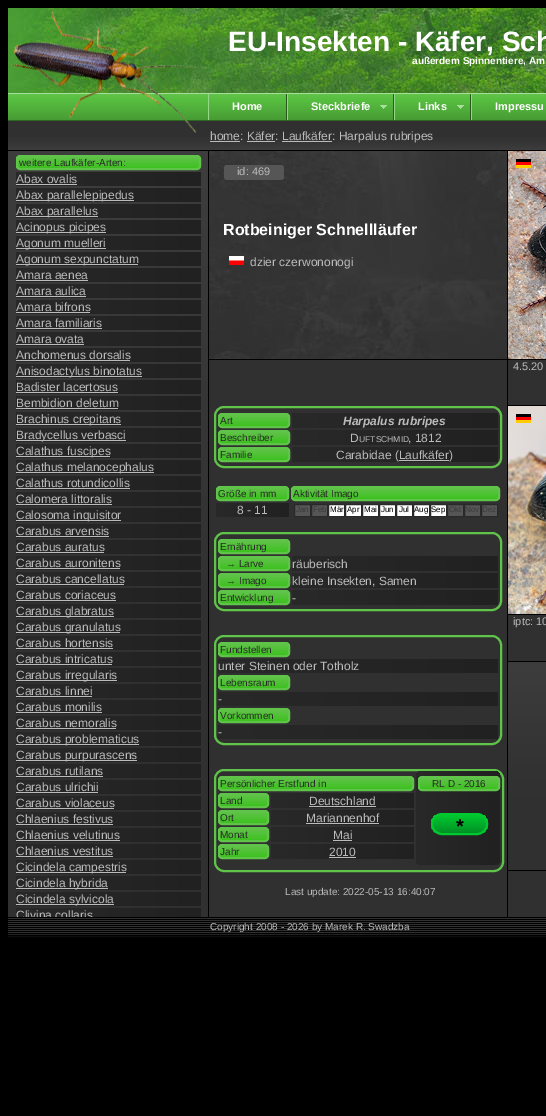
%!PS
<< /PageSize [546 1116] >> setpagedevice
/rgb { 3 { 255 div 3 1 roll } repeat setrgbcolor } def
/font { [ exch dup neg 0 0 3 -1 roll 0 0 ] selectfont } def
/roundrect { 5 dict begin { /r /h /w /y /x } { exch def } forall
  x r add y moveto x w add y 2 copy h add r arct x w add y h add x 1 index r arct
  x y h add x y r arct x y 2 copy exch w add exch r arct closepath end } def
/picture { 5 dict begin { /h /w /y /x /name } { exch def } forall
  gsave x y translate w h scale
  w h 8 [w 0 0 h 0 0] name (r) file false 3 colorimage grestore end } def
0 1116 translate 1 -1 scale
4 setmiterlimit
0 0 0 rgb
0 0 546 1116 rectfill
(img/1.rgb) 8 8 538 85 picture
48 48 48 rgb
8 121 200 8 rectfill
(img/3.rgb) 8 93 200 28 picture
gsave 8 129 moveto 546 129 lineto 546 150 lineto 8 150 lineto closepath clip newpath
<< /ShadingType 2 /ColorSpace /DeviceRGB /Coords [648 129 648 150] /Extend [true true] /Function << /FunctionType 3 /Domain [0 1] /Functions [<< /FunctionType 2 /Domain [0 1] /C0 [0.188 0.188 0.188] /C1 [0.188 0.188 0.188] /N 1 >> << /FunctionType 2 /Domain [0 1] /C0 [0.188 0.188 0.188] /C1 [0.239 0.239 0.239] /N 1 >>] /Bounds [0.32] /Encode [0 1 0 1] >> >> shfill grestore
(img/2.rgb) 10 11 198 123 picture
208 121 338 8 rectfill
(img/4.rgb) 208 93 338 28 picture
(img/5.rgb) 208 94 2 26 picture
40 86 29 rgb
286 94 1 26 rectfill
150 215 135 rgb
287 94 1 26 rectfill
(img/6.rgb) 380 94 14 26 picture
(img/5.rgb) 394 94 2 26 picture
(img/7.rgb) 457 94 14 26 picture
[
  [471 94 1 26 150 215 135]
  [210 141 30 1 187 187 187]
  [247 141 28 1 187 187 187]
  [282 141 50 1 187 187 187]
] { aload pop rgb rectfill } forall
gsave 8 151 moveto 208 151 lineto 208 917 lineto 8 917 lineto closepath clip newpath
<< /ShadingType 2 /ColorSpace /DeviceRGB /Coords [108 151 108 917] /Extend [true true] /Function << /FunctionType 3 /Domain [0 1] /Functions [<< /FunctionType 2 /Domain [0 1] /C0 [0.239 0.239 0.239] /C1 [0.188 0.188 0.188] /N 1 >> << /FunctionType 2 /Domain [0 1] /C0 [0.188 0.188 0.188] /C1 [0.188 0.188 0.188] /N 1 >>] /Bounds [0.68] /Encode [0 1 0 1] >> >> shfill grestore
gsave
16 155 185 15 4 roundrect clip newpath
gsave 16 157 moveto 201 157 lineto 201 168 lineto 16 168 lineto closepath clip newpath
<< /ShadingType 2 /ColorSpace /DeviceRGB /Coords [109 157 109 168] /Extend [true true] /Function << /FunctionType 2 /Domain [0 1] /C0 [0.376 0.765 0.29] /C1 [0.243 0.757 0.125] /N 1 >> >> shfill grestore
grestore
96 195 74 rgb
2 setlinewidth
17 156 183 13 3 roundrect stroke
gsave 16 172 moveto 201 172 lineto 201 186 lineto 16 186 lineto closepath clip newpath
<< /ShadingType 2 /ColorSpace /DeviceRGB /Coords [16 179 201 179] /Extend [true true] /Function << /FunctionType 2 /Domain [0 1] /C0 [0.161 0.161 0.161] /C1 [0.129 0.129 0.129] /N 1 >> >> shfill grestore
187 187 187 rgb
16 184 61 1 rectfill
gsave 16 188 moveto 201 188 lineto 201 202 lineto 16 202 lineto closepath clip newpath
<< /ShadingType 2 /ColorSpace /DeviceRGB /Coords [16 195 201 195] /Extend [true true] /Function << /FunctionType 2 /Domain [0 1] /C0 [0.161 0.161 0.161] /C1 [0.129 0.129 0.129] /N 1 >> >> shfill grestore
16 200 118 1 rectfill
gsave 16 204 moveto 201 204 lineto 201 218 lineto 16 218 lineto closepath clip newpath
<< /ShadingType 2 /ColorSpace /DeviceRGB /Coords [16 211 201 211] /Extend [true true] /Function << /FunctionType 2 /Domain [0 1] /C0 [0.161 0.161 0.161] /C1 [0.129 0.129 0.129] /N 1 >> >> shfill grestore
16 216 82 1 rectfill
gsave 16 220 moveto 201 220 lineto 201 234 lineto 16 234 lineto closepath clip newpath
<< /ShadingType 2 /ColorSpace /DeviceRGB /Coords [16 227 201 227] /Extend [true true] /Function << /FunctionType 2 /Domain [0 1] /C0 [0.161 0.161 0.161] /C1 [0.129 0.129 0.129] /N 1 >> >> shfill grestore
16 232 90 1 rectfill
gsave 16 236 moveto 201 236 lineto 201 250 lineto 16 250 lineto closepath clip newpath
<< /ShadingType 2 /ColorSpace /DeviceRGB /Coords [16 243 201 243] /Extend [true true] /Function << /FunctionType 2 /Domain [0 1] /C0 [0.161 0.161 0.161] /C1 [0.129 0.129 0.129] /N 1 >> >> shfill grestore
16 248 90 1 rectfill
gsave 16 252 moveto 201 252 lineto 201 266 lineto 16 266 lineto closepath clip newpath
<< /ShadingType 2 /ColorSpace /DeviceRGB /Coords [16 259 201 259] /Extend [true true] /Function << /FunctionType 2 /Domain [0 1] /C0 [0.161 0.161 0.161] /C1 [0.129 0.129 0.129] /N 1 >> >> shfill grestore
16 264 122 1 rectfill
gsave 16 268 moveto 201 268 lineto 201 282 lineto 16 282 lineto closepath clip newpath
<< /ShadingType 2 /ColorSpace /DeviceRGB /Coords [16 275 201 275] /Extend [true true] /Function << /FunctionType 2 /Domain [0 1] /C0 [0.161 0.161 0.161] /C1 [0.129 0.129 0.129] /N 1 >> >> shfill grestore
16 280 72 1 rectfill
gsave 16 284 moveto 201 284 lineto 201 298 lineto 16 298 lineto closepath clip newpath
<< /ShadingType 2 /ColorSpace /DeviceRGB /Coords [16 291 201 291] /Extend [true true] /Function << /FunctionType 2 /Domain [0 1] /C0 [0.161 0.161 0.161] /C1 [0.129 0.129 0.129] /N 1 >> >> shfill grestore
16 296 70 1 rectfill
gsave 16 300 moveto 201 300 lineto 201 314 lineto 16 314 lineto closepath clip newpath
<< /ShadingType 2 /ColorSpace /DeviceRGB /Coords [16 307 201 307] /Extend [true true] /Function << /FunctionType 2 /Domain [0 1] /C0 [0.161 0.161 0.161] /C1 [0.129 0.129 0.129] /N 1 >> >> shfill grestore
16 312 74 1 rectfill
gsave 16 316 moveto 201 316 lineto 201 330 lineto 16 330 lineto closepath clip newpath
<< /ShadingType 2 /ColorSpace /DeviceRGB /Coords [16 323 201 323] /Extend [true true] /Function << /FunctionType 2 /Domain [0 1] /C0 [0.161 0.161 0.161] /C1 [0.129 0.129 0.129] /N 1 >> >> shfill grestore
16 328 86 1 rectfill
gsave 16 332 moveto 201 332 lineto 201 346 lineto 16 346 lineto closepath clip newpath
<< /ShadingType 2 /ColorSpace /DeviceRGB /Coords [16 339 201 339] /Extend [true true] /Function << /FunctionType 2 /Domain [0 1] /C0 [0.161 0.161 0.161] /C1 [0.129 0.129 0.129] /N 1 >> >> shfill grestore
16 344 68 1 rectfill
gsave 16 348 moveto 201 348 lineto 201 362 lineto 16 362 lineto closepath clip newpath
<< /ShadingType 2 /ColorSpace /DeviceRGB /Coords [16 355 201 355] /Extend [true true] /Function << /FunctionType 2 /Domain [0 1] /C0 [0.161 0.161 0.161] /C1 [0.129 0.129 0.129] /N 1 >> >> shfill grestore
16 360 114 1 rectfill
gsave 16 364 moveto 201 364 lineto 201 378 lineto 16 378 lineto closepath clip newpath
<< /ShadingType 2 /ColorSpace /DeviceRGB /Coords [16 371 201 371] /Extend [true true] /Function << /FunctionType 2 /Domain [0 1] /C0 [0.161 0.161 0.161] /C1 [0.129 0.129 0.129] /N 1 >> >> shfill grestore
16 376 126 1 rectfill
gsave 16 380 moveto 201 380 lineto 201 394 lineto 16 394 lineto closepath clip newpath
<< /ShadingType 2 /ColorSpace /DeviceRGB /Coords [16 387 201 387] /Extend [true true] /Function << /FunctionType 2 /Domain [0 1] /C0 [0.161 0.161 0.161] /C1 [0.129 0.129 0.129] /N 1 >> >> shfill grestore
16 392 102 1 rectfill
gsave 16 396 moveto 201 396 lineto 201 410 lineto 16 410 lineto closepath clip newpath
<< /ShadingType 2 /ColorSpace /DeviceRGB /Coords [16 403 201 403] /Extend [true true] /Function << /FunctionType 2 /Domain [0 1] /C0 [0.161 0.161 0.161] /C1 [0.129 0.129 0.129] /N 1 >> >> shfill grestore
16 408 102 1 rectfill
gsave 16 412 moveto 201 412 lineto 201 426 lineto 16 426 lineto closepath clip newpath
<< /ShadingType 2 /ColorSpace /DeviceRGB /Coords [16 419 201 419] /Extend [true true] /Function << /FunctionType 2 /Domain [0 1] /C0 [0.161 0.161 0.161] /C1 [0.129 0.129 0.129] /N 1 >> >> shfill grestore
16 424 105 1 rectfill
gsave 16 428 moveto 201 428 lineto 201 442 lineto 16 442 lineto closepath clip newpath
<< /ShadingType 2 /ColorSpace /DeviceRGB /Coords [16 435 201 435] /Extend [true true] /Function << /FunctionType 2 /Domain [0 1] /C0 [0.161 0.161 0.161] /C1 [0.129 0.129 0.129] /N 1 >> >> shfill grestore
16 440 110 1 rectfill
gsave 16 444 moveto 201 444 lineto 201 458 lineto 16 458 lineto closepath clip newpath
<< /ShadingType 2 /ColorSpace /DeviceRGB /Coords [16 451 201 451] /Extend [true true] /Function << /FunctionType 2 /Domain [0 1] /C0 [0.161 0.161 0.161] /C1 [0.129 0.129 0.129] /N 1 >> >> shfill grestore
16 456 94 1 rectfill
gsave 16 460 moveto 201 460 lineto 201 474 lineto 16 474 lineto closepath clip newpath
<< /ShadingType 2 /ColorSpace /DeviceRGB /Coords [16 467 201 467] /Extend [true true] /Function << /FunctionType 2 /Domain [0 1] /C0 [0.161 0.161 0.161] /C1 [0.129 0.129 0.129] /N 1 >> >> shfill grestore
16 472 138 1 rectfill
gsave 16 476 moveto 201 476 lineto 201 490 lineto 16 490 lineto closepath clip newpath
<< /ShadingType 2 /ColorSpace /DeviceRGB /Coords [16 483 201 483] /Extend [true true] /Function << /FunctionType 2 /Domain [0 1] /C0 [0.161 0.161 0.161] /C1 [0.129 0.129 0.129] /N 1 >> >> shfill grestore
16 488 114 1 rectfill
gsave 16 492 moveto 201 492 lineto 201 506 lineto 16 506 lineto closepath clip newpath
<< /ShadingType 2 /ColorSpace /DeviceRGB /Coords [16 499 201 499] /Extend [true true] /Function << /FunctionType 2 /Domain [0 1] /C0 [0.161 0.161 0.161] /C1 [0.129 0.129 0.129] /N 1 >> >> shfill grestore
16 504 96 1 rectfill
gsave 16 508 moveto 201 508 lineto 201 522 lineto 16 522 lineto closepath clip newpath
<< /ShadingType 2 /ColorSpace /DeviceRGB /Coords [16 515 201 515] /Extend [true true] /Function << /FunctionType 2 /Domain [0 1] /C0 [0.161 0.161 0.161] /C1 [0.129 0.129 0.129] /N 1 >> >> shfill grestore
16 520 105 1 rectfill
gsave 16 524 moveto 201 524 lineto 201 538 lineto 16 538 lineto closepath clip newpath
<< /ShadingType 2 /ColorSpace /DeviceRGB /Coords [16 531 201 531] /Extend [true true] /Function << /FunctionType 2 /Domain [0 1] /C0 [0.161 0.161 0.161] /C1 [0.129 0.129 0.129] /N 1 >> >> shfill grestore
16 536 93 1 rectfill
gsave 16 540 moveto 201 540 lineto 201 554 lineto 16 554 lineto closepath clip newpath
<< /ShadingType 2 /ColorSpace /DeviceRGB /Coords [16 547 201 547] /Extend [true true] /Function << /FunctionType 2 /Domain [0 1] /C0 [0.161 0.161 0.161] /C1 [0.129 0.129 0.129] /N 1 >> >> shfill grestore
16 552 88 1 rectfill
gsave 16 556 moveto 201 556 lineto 201 570 lineto 16 570 lineto closepath clip newpath
<< /ShadingType 2 /ColorSpace /DeviceRGB /Coords [16 563 201 563] /Extend [true true] /Function << /FunctionType 2 /Domain [0 1] /C0 [0.161 0.161 0.161] /C1 [0.129 0.129 0.129] /N 1 >> >> shfill grestore
16 568 104 1 rectfill
gsave 16 572 moveto 201 572 lineto 201 586 lineto 16 586 lineto closepath clip newpath
<< /ShadingType 2 /ColorSpace /DeviceRGB /Coords [16 579 201 579] /Extend [true true] /Function << /FunctionType 2 /Domain [0 1] /C0 [0.161 0.161 0.161] /C1 [0.129 0.129 0.129] /N 1 >> >> shfill grestore
16 584 108 1 rectfill
gsave 16 588 moveto 201 588 lineto 201 602 lineto 16 602 lineto closepath clip newpath
<< /ShadingType 2 /ColorSpace /DeviceRGB /Coords [16 595 201 595] /Extend [true true] /Function << /FunctionType 2 /Domain [0 1] /C0 [0.161 0.161 0.161] /C1 [0.129 0.129 0.129] /N 1 >> >> shfill grestore
16 600 100 1 rectfill
gsave 16 604 moveto 201 604 lineto 201 618 lineto 16 618 lineto closepath clip newpath
<< /ShadingType 2 /ColorSpace /DeviceRGB /Coords [16 611 201 611] /Extend [true true] /Function << /FunctionType 2 /Domain [0 1] /C0 [0.161 0.161 0.161] /C1 [0.129 0.129 0.129] /N 1 >> >> shfill grestore
16 616 98 1 rectfill
gsave 16 620 moveto 201 620 lineto 201 634 lineto 16 634 lineto closepath clip newpath
<< /ShadingType 2 /ColorSpace /DeviceRGB /Coords [16 627 201 627] /Extend [true true] /Function << /FunctionType 2 /Domain [0 1] /C0 [0.161 0.161 0.161] /C1 [0.129 0.129 0.129] /N 1 >> >> shfill grestore
16 632 104 1 rectfill
gsave 16 636 moveto 201 636 lineto 201 650 lineto 16 650 lineto closepath clip newpath
<< /ShadingType 2 /ColorSpace /DeviceRGB /Coords [16 643 201 643] /Extend [true true] /Function << /FunctionType 2 /Domain [0 1] /C0 [0.161 0.161 0.161] /C1 [0.129 0.129 0.129] /N 1 >> >> shfill grestore
16 648 97 1 rectfill
gsave 16 652 moveto 201 652 lineto 201 666 lineto 16 666 lineto closepath clip newpath
<< /ShadingType 2 /ColorSpace /DeviceRGB /Coords [16 659 201 659] /Extend [true true] /Function << /FunctionType 2 /Domain [0 1] /C0 [0.161 0.161 0.161] /C1 [0.129 0.129 0.129] /N 1 >> >> shfill grestore
16 664 96 1 rectfill
gsave 16 668 moveto 201 668 lineto 201 682 lineto 16 682 lineto closepath clip newpath
<< /ShadingType 2 /ColorSpace /DeviceRGB /Coords [16 675 201 675] /Extend [true true] /Function << /FunctionType 2 /Domain [0 1] /C0 [0.161 0.161 0.161] /C1 [0.129 0.129 0.129] /N 1 >> >> shfill grestore
16 680 101 1 rectfill
gsave 16 684 moveto 201 684 lineto 201 698 lineto 16 698 lineto closepath clip newpath
<< /ShadingType 2 /ColorSpace /DeviceRGB /Coords [16 691 201 691] /Extend [true true] /Function << /FunctionType 2 /Domain [0 1] /C0 [0.161 0.161 0.161] /C1 [0.129 0.129 0.129] /N 1 >> >> shfill grestore
16 696 76 1 rectfill
gsave 16 700 moveto 201 700 lineto 201 714 lineto 16 714 lineto closepath clip newpath
<< /ShadingType 2 /ColorSpace /DeviceRGB /Coords [16 707 201 707] /Extend [true true] /Function << /FunctionType 2 /Domain [0 1] /C0 [0.161 0.161 0.161] /C1 [0.129 0.129 0.129] /N 1 >> >> shfill grestore
16 712 86 1 rectfill
gsave 16 716 moveto 201 716 lineto 201 730 lineto 16 730 lineto closepath clip newpath
<< /ShadingType 2 /ColorSpace /DeviceRGB /Coords [16 723 201 723] /Extend [true true] /Function << /FunctionType 2 /Domain [0 1] /C0 [0.161 0.161 0.161] /C1 [0.129 0.129 0.129] /N 1 >> >> shfill grestore
16 728 100 1 rectfill
gsave 16 732 moveto 201 732 lineto 201 746 lineto 16 746 lineto closepath clip newpath
<< /ShadingType 2 /ColorSpace /DeviceRGB /Coords [16 739 201 739] /Extend [true true] /Function << /FunctionType 2 /Domain [0 1] /C0 [0.161 0.161 0.161] /C1 [0.129 0.129 0.129] /N 1 >> >> shfill grestore
16 744 123 1 rectfill
gsave 16 748 moveto 201 748 lineto 201 762 lineto 16 762 lineto closepath clip newpath
<< /ShadingType 2 /ColorSpace /DeviceRGB /Coords [16 755 201 755] /Extend [true true] /Function << /FunctionType 2 /Domain [0 1] /C0 [0.161 0.161 0.161] /C1 [0.129 0.129 0.129] /N 1 >> >> shfill grestore
16 760 121 1 rectfill
gsave 16 764 moveto 201 764 lineto 201 778 lineto 16 778 lineto closepath clip newpath
<< /ShadingType 2 /ColorSpace /DeviceRGB /Coords [16 771 201 771] /Extend [true true] /Function << /FunctionType 2 /Domain [0 1] /C0 [0.161 0.161 0.161] /C1 [0.129 0.129 0.129] /N 1 >> >> shfill grestore
16 776 87 1 rectfill
gsave 16 780 moveto 201 780 lineto 201 794 lineto 16 794 lineto closepath clip newpath
<< /ShadingType 2 /ColorSpace /DeviceRGB /Coords [16 787 201 787] /Extend [true true] /Function << /FunctionType 2 /Domain [0 1] /C0 [0.161 0.161 0.161] /C1 [0.129 0.129 0.129] /N 1 >> >> shfill grestore
16 792 82 1 rectfill
gsave 16 796 moveto 201 796 lineto 201 810 lineto 16 810 lineto closepath clip newpath
<< /ShadingType 2 /ColorSpace /DeviceRGB /Coords [16 803 201 803] /Extend [true true] /Function << /FunctionType 2 /Domain [0 1] /C0 [0.161 0.161 0.161] /C1 [0.129 0.129 0.129] /N 1 >> >> shfill grestore
16 808 98 1 rectfill
gsave 16 812 moveto 201 812 lineto 201 826 lineto 16 826 lineto closepath clip newpath
<< /ShadingType 2 /ColorSpace /DeviceRGB /Coords [16 819 201 819] /Extend [true true] /Function << /FunctionType 2 /Domain [0 1] /C0 [0.161 0.161 0.161] /C1 [0.129 0.129 0.129] /N 1 >> >> shfill grestore
16 824 97 1 rectfill
gsave 16 828 moveto 201 828 lineto 201 842 lineto 16 842 lineto closepath clip newpath
<< /ShadingType 2 /ColorSpace /DeviceRGB /Coords [16 835 201 835] /Extend [true true] /Function << /FunctionType 2 /Domain [0 1] /C0 [0.161 0.161 0.161] /C1 [0.129 0.129 0.129] /N 1 >> >> shfill grestore
16 840 104 1 rectfill
gsave 16 844 moveto 201 844 lineto 201 858 lineto 16 858 lineto closepath clip newpath
<< /ShadingType 2 /ColorSpace /DeviceRGB /Coords [16 851 201 851] /Extend [true true] /Function << /FunctionType 2 /Domain [0 1] /C0 [0.161 0.161 0.161] /C1 [0.129 0.129 0.129] /N 1 >> >> shfill grestore
16 856 97 1 rectfill
gsave 16 860 moveto 201 860 lineto 201 874 lineto 16 874 lineto closepath clip newpath
<< /ShadingType 2 /ColorSpace /DeviceRGB /Coords [16 867 201 867] /Extend [true true] /Function << /FunctionType 2 /Domain [0 1] /C0 [0.161 0.161 0.161] /C1 [0.129 0.129 0.129] /N 1 >> >> shfill grestore
16 872 110 1 rectfill
gsave 16 876 moveto 201 876 lineto 201 890 lineto 16 890 lineto closepath clip newpath
<< /ShadingType 2 /ColorSpace /DeviceRGB /Coords [16 883 201 883] /Extend [true true] /Function << /FunctionType 2 /Domain [0 1] /C0 [0.161 0.161 0.161] /C1 [0.129 0.129 0.129] /N 1 >> >> shfill grestore
16 888 92 1 rectfill
gsave 16 892 moveto 201 892 lineto 201 906 lineto 16 906 lineto closepath clip newpath
<< /ShadingType 2 /ColorSpace /DeviceRGB /Coords [16 899 201 899] /Extend [true true] /Function << /FunctionType 2 /Domain [0 1] /C0 [0.161 0.161 0.161] /C1 [0.129 0.129 0.129] /N 1 >> >> shfill grestore
16 904 98 1 rectfill
gsave 16 908 moveto 201 908 lineto 201 917 lineto 16 917 lineto closepath clip newpath
<< /ShadingType 2 /ColorSpace /DeviceRGB /Coords [16 915 201 915] /Extend [true true] /Function << /FunctionType 2 /Domain [0 1] /C0 [0.161 0.161 0.161] /C1 [0.129 0.129 0.129] /N 1 >> >> shfill grestore
(img/8.rgb) 209 151 298 208 picture
86 86 86 rgb
224 165 60 15 3 roundrect fill
(img/9.rgb) 229 256 15 9 picture
(img/10.rgb) 508 151 38 208 picture
(img/11.rgb) 516 159 15 9 picture
48 48 48 rgb
209 360 298 557 rectfill
96 195 74 rgb
215 407 286 60 9 roundrect stroke
gsave
218 413 72 15 4 roundrect clip newpath
gsave 218 415 moveto 290 415 lineto 290 426 lineto 218 426 lineto closepath clip newpath
<< /ShadingType 2 /ColorSpace /DeviceRGB /Coords [254 415 254 426] /Extend [true true] /Function << /FunctionType 2 /Domain [0 1] /C0 [0.376 0.765 0.29] /C1 [0.243 0.757 0.125] /N 1 >> >> shfill grestore
grestore
219 414 70 13 3 roundrect stroke
gsave 292 413 moveto 498 413 lineto 498 428 lineto 292 428 lineto closepath clip newpath
<< /ShadingType 2 /ColorSpace /DeviceRGB /Coords [292 421 498 421] /Extend [true true] /Function << /FunctionType 2 /Domain [0 1] /C0 [0.161 0.161 0.161] /C1 [0.129 0.129 0.129] /N 1 >> >> shfill grestore
gsave
218 430 72 15 4 roundrect clip newpath
gsave 218 432 moveto 290 432 lineto 290 443 lineto 218 443 lineto closepath clip newpath
<< /ShadingType 2 /ColorSpace /DeviceRGB /Coords [254 432 254 443] /Extend [true true] /Function << /FunctionType 2 /Domain [0 1] /C0 [0.376 0.765 0.29] /C1 [0.243 0.757 0.125] /N 1 >> >> shfill grestore
grestore
219 431 70 13 3 roundrect stroke
gsave 292 430 moveto 498 430 lineto 498 445 lineto 292 445 lineto closepath clip newpath
<< /ShadingType 2 /ColorSpace /DeviceRGB /Coords [292 438 498 438] /Extend [true true] /Function << /FunctionType 2 /Domain [0 1] /C0 [0.161 0.161 0.161] /C1 [0.129 0.129 0.129] /N 1 >> >> shfill grestore
gsave
218 447 72 15 4 roundrect clip newpath
gsave 218 449 moveto 290 449 lineto 290 460 lineto 218 460 lineto closepath clip newpath
<< /ShadingType 2 /ColorSpace /DeviceRGB /Coords [254 449 254 460] /Extend [true true] /Function << /FunctionType 2 /Domain [0 1] /C0 [0.376 0.765 0.29] /C1 [0.243 0.757 0.125] /N 1 >> >> shfill grestore
grestore
219 448 70 13 3 roundrect stroke
gsave 292 447 moveto 498 447 lineto 498 462 lineto 292 462 lineto closepath clip newpath
<< /ShadingType 2 /ColorSpace /DeviceRGB /Coords [292 455 498 455] /Extend [true true] /Function << /FunctionType 2 /Domain [0 1] /C0 [0.161 0.161 0.161] /C1 [0.129 0.129 0.129] /N 1 >> >> shfill grestore
187 187 187 rgb
399 460 50 1 rectfill
gsave
216 486 73 15 4 roundrect clip newpath
gsave 216 488 moveto 289 488 lineto 289 499 lineto 216 499 lineto closepath clip newpath
<< /ShadingType 2 /ColorSpace /DeviceRGB /Coords [253 488 253 499] /Extend [true true] /Function << /FunctionType 2 /Domain [0 1] /C0 [0.376 0.765 0.29] /C1 [0.243 0.757 0.125] /N 1 >> >> shfill grestore
grestore
96 195 74 rgb
217 487 71 13 3 roundrect stroke
gsave
291 486 209 15 4 roundrect clip newpath
gsave 291 488 moveto 500 488 lineto 500 499 lineto 291 499 lineto closepath clip newpath
<< /ShadingType 2 /ColorSpace /DeviceRGB /Coords [396 488 396 499] /Extend [true true] /Function << /FunctionType 2 /Domain [0 1] /C0 [0.376 0.765 0.29] /C1 [0.243 0.757 0.125] /N 1 >> >> shfill grestore
grestore
292 487 207 13 3 roundrect stroke
gsave 216 503 moveto 289 503 lineto 289 517 lineto 216 517 lineto closepath clip newpath
<< /ShadingType 2 /ColorSpace /DeviceRGB /Coords [216 510 289 510] /Extend [true true] /Function << /FunctionType 2 /Domain [0 1] /C0 [0.161 0.161 0.161] /C1 [0.129 0.129 0.129] /N 1 >> >> shfill grestore
86 86 86 rgb
294.5 504.5 16 12 0.5 roundrect gsave fill grestore
41 41 41 rgb
1 setlinewidth
stroke
86 86 86 rgb
311.5 504.5 16 12 0.5 roundrect gsave fill grestore
41 41 41 rgb
stroke
255 255 255 rgb
328.5 504.5 16 12 0.5 roundrect gsave fill grestore
41 41 41 rgb
stroke
255 255 255 rgb
345.5 504.5 16 12 0.5 roundrect gsave fill grestore
41 41 41 rgb
stroke
255 255 255 rgb
362.5 504.5 16 12 0.5 roundrect gsave fill grestore
41 41 41 rgb
stroke
255 255 255 rgb
379.5 504.5 16 12 0.5 roundrect gsave fill grestore
41 41 41 rgb
stroke
255 255 255 rgb
396.5 504.5 16 12 0.5 roundrect gsave fill grestore
41 41 41 rgb
stroke
255 255 255 rgb
413.5 504.5 16 12 0.5 roundrect gsave fill grestore
41 41 41 rgb
stroke
255 255 255 rgb
430.5 504.5 16 12 0.5 roundrect gsave fill grestore
41 41 41 rgb
stroke
86 86 86 rgb
447.5 504.5 16 12 0.5 roundrect gsave fill grestore
41 41 41 rgb
stroke
86 86 86 rgb
464.5 504.5 16 12 0.5 roundrect gsave fill grestore
41 41 41 rgb
stroke
86 86 86 rgb
481.5 504.5 16 12 0.5 roundrect gsave fill grestore
41 41 41 rgb
stroke
96 195 74 rgb
2 setlinewidth
215 533 286 77 9 roundrect stroke
gsave
218 539 72 15 4 roundrect clip newpath
gsave 218 541 moveto 290 541 lineto 290 552 lineto 218 552 lineto closepath clip newpath
<< /ShadingType 2 /ColorSpace /DeviceRGB /Coords [254 541 254 552] /Extend [true true] /Function << /FunctionType 2 /Domain [0 1] /C0 [0.376 0.765 0.29] /C1 [0.243 0.757 0.125] /N 1 >> >> shfill grestore
grestore
219 540 70 13 3 roundrect stroke
gsave
218 556 72 15 4 roundrect clip newpath
gsave 218 558 moveto 290 558 lineto 290 569 lineto 218 569 lineto closepath clip newpath
<< /ShadingType 2 /ColorSpace /DeviceRGB /Coords [254 558 254 569] /Extend [true true] /Function << /FunctionType 2 /Domain [0 1] /C0 [0.376 0.765 0.29] /C1 [0.243 0.757 0.125] /N 1 >> >> shfill grestore
grestore
219 557 70 13 3 roundrect stroke
gsave 292 556 moveto 498 556 lineto 498 571 lineto 292 571 lineto closepath clip newpath
<< /ShadingType 2 /ColorSpace /DeviceRGB /Coords [292 564 498 564] /Extend [true true] /Function << /FunctionType 2 /Domain [0 1] /C0 [0.161 0.161 0.161] /C1 [0.129 0.129 0.129] /N 1 >> >> shfill grestore
gsave
218 573 72 15 4 roundrect clip newpath
gsave 218 575 moveto 290 575 lineto 290 586 lineto 218 586 lineto closepath clip newpath
<< /ShadingType 2 /ColorSpace /DeviceRGB /Coords [254 575 254 586] /Extend [true true] /Function << /FunctionType 2 /Domain [0 1] /C0 [0.376 0.765 0.29] /C1 [0.243 0.757 0.125] /N 1 >> >> shfill grestore
grestore
219 574 70 13 3 roundrect stroke
gsave 292 573 moveto 498 573 lineto 498 588 lineto 292 588 lineto closepath clip newpath
<< /ShadingType 2 /ColorSpace /DeviceRGB /Coords [292 581 498 581] /Extend [true true] /Function << /FunctionType 2 /Domain [0 1] /C0 [0.161 0.161 0.161] /C1 [0.129 0.129 0.129] /N 1 >> >> shfill grestore
gsave
218 590 72 15 4 roundrect clip newpath
gsave 218 592 moveto 290 592 lineto 290 603 lineto 218 603 lineto closepath clip newpath
<< /ShadingType 2 /ColorSpace /DeviceRGB /Coords [254 592 254 603] /Extend [true true] /Function << /FunctionType 2 /Domain [0 1] /C0 [0.376 0.765 0.29] /C1 [0.243 0.757 0.125] /N 1 >> >> shfill grestore
grestore
219 591 70 13 3 roundrect stroke
gsave 292 590 moveto 498 590 lineto 498 605 lineto 292 605 lineto closepath clip newpath
<< /ShadingType 2 /ColorSpace /DeviceRGB /Coords [292 598 498 598] /Extend [true true] /Function << /FunctionType 2 /Domain [0 1] /C0 [0.161 0.161 0.161] /C1 [0.129 0.129 0.129] /N 1 >> >> shfill grestore
215 636 286 108 9 roundrect stroke
gsave
218 642 72 15 4 roundrect clip newpath
gsave 218 644 moveto 290 644 lineto 290 655 lineto 218 655 lineto closepath clip newpath
<< /ShadingType 2 /ColorSpace /DeviceRGB /Coords [254 644 254 655] /Extend [true true] /Function << /FunctionType 2 /Domain [0 1] /C0 [0.376 0.765 0.29] /C1 [0.243 0.757 0.125] /N 1 >> >> shfill grestore
grestore
219 643 70 13 3 roundrect stroke
gsave 218 659 moveto 498 659 lineto 498 673 lineto 218 673 lineto closepath clip newpath
<< /ShadingType 2 /ColorSpace /DeviceRGB /Coords [218 666 498 666] /Extend [true true] /Function << /FunctionType 2 /Domain [0 1] /C0 [0.161 0.161 0.161] /C1 [0.129 0.129 0.129] /N 1 >> >> shfill grestore
gsave
218 675 72 15 4 roundrect clip newpath
gsave 218 677 moveto 290 677 lineto 290 688 lineto 218 688 lineto closepath clip newpath
<< /ShadingType 2 /ColorSpace /DeviceRGB /Coords [254 677 254 688] /Extend [true true] /Function << /FunctionType 2 /Domain [0 1] /C0 [0.376 0.765 0.29] /C1 [0.243 0.757 0.125] /N 1 >> >> shfill grestore
grestore
219 676 70 13 3 roundrect stroke
gsave 218 692 moveto 498 692 lineto 498 706 lineto 218 706 lineto closepath clip newpath
<< /ShadingType 2 /ColorSpace /DeviceRGB /Coords [218 699 498 699] /Extend [true true] /Function << /FunctionType 2 /Domain [0 1] /C0 [0.161 0.161 0.161] /C1 [0.129 0.129 0.129] /N 1 >> >> shfill grestore
gsave
218 708 72 15 4 roundrect clip newpath
gsave 218 710 moveto 290 710 lineto 290 721 lineto 218 721 lineto closepath clip newpath
<< /ShadingType 2 /ColorSpace /DeviceRGB /Coords [254 710 254 721] /Extend [true true] /Function << /FunctionType 2 /Domain [0 1] /C0 [0.376 0.765 0.29] /C1 [0.243 0.757 0.125] /N 1 >> >> shfill grestore
grestore
219 709 70 13 3 roundrect stroke
gsave 218 725 moveto 498 725 lineto 498 739 lineto 218 739 lineto closepath clip newpath
<< /ShadingType 2 /ColorSpace /DeviceRGB /Coords [218 732 498 732] /Extend [true true] /Function << /FunctionType 2 /Domain [0 1] /C0 [0.161 0.161 0.161] /C1 [0.129 0.129 0.129] /N 1 >> >> shfill grestore
215 770 288 101 9 roundrect stroke
gsave
218 776 196 15 4 roundrect clip newpath
gsave 218 778 moveto 414 778 lineto 414 789 lineto 218 789 lineto closepath clip newpath
<< /ShadingType 2 /ColorSpace /DeviceRGB /Coords [316 778 316 789] /Extend [true true] /Function << /FunctionType 2 /Domain [0 1] /C0 [0.376 0.765 0.29] /C1 [0.243 0.757 0.125] /N 1 >> >> shfill grestore
grestore
219 777 194 13 3 roundrect stroke
gsave
218 793 51 15 4 roundrect clip newpath
gsave 218 795 moveto 269 795 lineto 269 806 lineto 218 806 lineto closepath clip newpath
<< /ShadingType 2 /ColorSpace /DeviceRGB /Coords [244 795 244 806] /Extend [true true] /Function << /FunctionType 2 /Domain [0 1] /C0 [0.376 0.765 0.29] /C1 [0.243 0.757 0.125] /N 1 >> >> shfill grestore
grestore
219 794 49 13 3 roundrect stroke
gsave 271 793 moveto 414 793 lineto 414 808 lineto 271 808 lineto closepath clip newpath
<< /ShadingType 2 /ColorSpace /DeviceRGB /Coords [271 801 414 801] /Extend [true true] /Function << /FunctionType 2 /Domain [0 1] /C0 [0.161 0.161 0.161] /C1 [0.129 0.129 0.129] /N 1 >> >> shfill grestore
187 187 187 rgb
309 806 67 1 rectfill
gsave
218 810 51 15 4 roundrect clip newpath
gsave 218 812 moveto 269 812 lineto 269 823 lineto 218 823 lineto closepath clip newpath
<< /ShadingType 2 /ColorSpace /DeviceRGB /Coords [244 812 244 823] /Extend [true true] /Function << /FunctionType 2 /Domain [0 1] /C0 [0.376 0.765 0.29] /C1 [0.243 0.757 0.125] /N 1 >> >> shfill grestore
grestore
96 195 74 rgb
219 811 49 13 3 roundrect stroke
gsave 271 810 moveto 414 810 lineto 414 825 lineto 271 825 lineto closepath clip newpath
<< /ShadingType 2 /ColorSpace /DeviceRGB /Coords [271 818 414 818] /Extend [true true] /Function << /FunctionType 2 /Domain [0 1] /C0 [0.161 0.161 0.161] /C1 [0.129 0.129 0.129] /N 1 >> >> shfill grestore
187 187 187 rgb
306 823 73 1 rectfill
gsave
218 827 51 15 4 roundrect clip newpath
gsave 218 829 moveto 269 829 lineto 269 840 lineto 218 840 lineto closepath clip newpath
<< /ShadingType 2 /ColorSpace /DeviceRGB /Coords [244 829 244 840] /Extend [true true] /Function << /FunctionType 2 /Domain [0 1] /C0 [0.376 0.765 0.29] /C1 [0.243 0.757 0.125] /N 1 >> >> shfill grestore
grestore
96 195 74 rgb
219 828 49 13 3 roundrect stroke
gsave 271 827 moveto 414 827 lineto 414 842 lineto 271 842 lineto closepath clip newpath
<< /ShadingType 2 /ColorSpace /DeviceRGB /Coords [271 835 414 835] /Extend [true true] /Function << /FunctionType 2 /Domain [0 1] /C0 [0.161 0.161 0.161] /C1 [0.129 0.129 0.129] /N 1 >> >> shfill grestore
187 187 187 rgb
333 840 19 1 rectfill
gsave
218 844 51 15 4 roundrect clip newpath
gsave 218 846 moveto 269 846 lineto 269 857 lineto 218 857 lineto closepath clip newpath
<< /ShadingType 2 /ColorSpace /DeviceRGB /Coords [244 846 244 857] /Extend [true true] /Function << /FunctionType 2 /Domain [0 1] /C0 [0.376 0.765 0.29] /C1 [0.243 0.757 0.125] /N 1 >> >> shfill grestore
grestore
96 195 74 rgb
219 845 49 13 3 roundrect stroke
gsave 271 844 moveto 414 844 lineto 414 859 lineto 271 859 lineto closepath clip newpath
<< /ShadingType 2 /ColorSpace /DeviceRGB /Coords [271 852 414 852] /Extend [true true] /Function << /FunctionType 2 /Domain [0 1] /C0 [0.161 0.161 0.161] /C1 [0.129 0.129 0.129] /N 1 >> >> shfill grestore
187 187 187 rgb
329 857 27 1 rectfill
gsave 416 771 84 94 6 roundrect clip newpath
<< /ShadingType 2 /ColorSpace /DeviceRGB /Coords [416 818 500 818] /Extend [true true] /Function << /FunctionType 2 /Domain [0 1] /C0 [0.161 0.161 0.161] /C1 [0.129 0.129 0.129] /N 1 >> >> shfill grestore
gsave
418 776 82 15 4 roundrect clip newpath
gsave 418 778 moveto 500 778 lineto 500 789 lineto 418 789 lineto closepath clip newpath
<< /ShadingType 2 /ColorSpace /DeviceRGB /Coords [459 778 459 789] /Extend [true true] /Function << /FunctionType 2 /Domain [0 1] /C0 [0.376 0.765 0.29] /C1 [0.243 0.757 0.125] /N 1 >> >> shfill grestore
grestore
96 195 74 rgb
419 777 80 13 3 roundrect stroke
gsave
431 813 57 22 11 roundrect clip newpath
gsave 431 815 moveto 488 815 lineto 488 833 lineto 431 833 lineto closepath clip newpath
<< /ShadingType 2 /ColorSpace /DeviceRGB /Coords [460 815 460 833] /Extend [true true] /Function << /FunctionType 2 /Domain [0 1] /C0 [0 0.788 0.184] /C1 [0 0.569 0.149] /N 1 >> >> shfill grestore
grestore
0 201 47 rgb
432 814 55 20 10 roundrect stroke
48 48 48 rgb
508 360 38 45 rectfill
(img/12.rgb) 508 406 38 208 picture
(img/11.rgb) 516 414 15 9 picture
508 615 38 46 rectfill
gsave 508 662 moveto 546 662 lineto 546 870 lineto 508 870 lineto closepath clip newpath
<< /ShadingType 2 /ColorSpace /DeviceRGB /Coords [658 662 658 870] /Extend [true true] /Function << /FunctionType 3 /Domain [0 1] /Functions [<< /FunctionType 2 /Domain [0 1] /C0 [0.239 0.239 0.239] /C1 [0.188 0.188 0.188] /N 1 >> << /FunctionType 2 /Domain [0 1] /C0 [0.188 0.188 0.188] /C1 [0.188 0.188 0.188] /N 1 >>] /Bounds [0.68] /Encode [0 1 0 1] >> >> shfill grestore
508 871 38 46 rectfill
(img/13.rgb) 8 918 538 19 picture
/LiberationSans-Bold 28 font
255 255 255 rgb
228 51 moveto (EU-Insekten - Käfer, Sch) show
/LiberationSans-Bold 10 font
412 64 moveto (außerdem Spinnentiere, Am) show
/LiberationSans-Bold 11 font
[
  [(Home) 232 110]
  [(Steckbriefe) 311 110]
  [(Links) 418 110]
  [(Impressu) 495 110]
] { aload pop moveto show } forall
/LiberationSans-Regular 12 font
187 187 187 rgb
210 140 moveto (home: Käfer: Laufkäfer: Harpalus rubripes) show
/LiberationSans-Regular 10 font
41 41 41 rgb
19 166 moveto (weitere Laufkäfer-Arten:) show
/LiberationSans-Regular 12 font
187 187 187 rgb
[
  [(Abax ovalis) 16 183]
  [(Abax parallelepipedus) 16 199]
  [(Abax parallelus) 16 215]
  [(Acinopus picipes) 16 231]
  [(Agonum muelleri) 16 247]
  [(Agonum sexpunctatum) 16 263]
  [(Amara aenea) 16 279]
  [(Amara aulica) 16 295]
  [(Amara bifrons) 16 311]
  [(Amara familiaris) 16 327]
  [(Amara ovata) 16 343]
  [(Anchomenus dorsalis) 16 359]
  [(Anisodactylus binotatus) 16 375]
  [(Badister lacertosus) 16 391]
  [(Bembidion deletum) 16 407]
  [(Brachinus crepitans) 16 423]
  [(Bradycellus verbasci) 16 439]
  [(Calathus fuscipes) 16 455]
  [(Calathus melanocephalus) 16 471]
  [(Calathus rotundicollis) 16 487]
  [(Calomera littoralis) 16 503]
  [(Calosoma inquisitor) 16 519]
  [(Carabus arvensis) 16 535]
  [(Carabus auratus) 16 551]
  [(Carabus auronitens) 16 567]
  [(Carabus cancellatus) 16 583]
  [(Carabus coriaceus) 16 599]
  [(Carabus glabratus) 16 615]
  [(Carabus granulatus) 16 631]
  [(Carabus hortensis) 16 647]
  [(Carabus intricatus) 16 663]
  [(Carabus irregularis) 16 679]
  [(Carabus linnei) 16 695]
  [(Carabus monilis) 16 711]
  [(Carabus nemoralis) 16 727]
  [(Carabus problematicus) 16 743]
  [(Carabus purpurascens) 16 759]
  [(Carabus rutilans) 16 775]
  [(Carabus ulrichii) 16 791]
  [(Carabus violaceus) 16 807]
  [(Chlaenius festivus) 16 823]
  [(Chlaenius velutinus) 16 839]
  [(Chlaenius vestitus) 16 855]
  [(Cicindela campestris) 16 871]
  [(Cicindela hybrida) 16 887]
  [(Cicindela sylvicola) 16 903]
] { aload pop moveto show } forall
gsave
8 151 200 766 rectclip
16 919 moveto (Clivina collaris) show
grestore
/LiberationSans-Regular 11 font
237 175 moveto (id: 469) show
/LiberationSans-Bold 16 font
255 255 255 rgb
223 235 moveto (Rotbeiniger Schnellläufer) show
/LiberationSans-Regular 12 font
187 187 187 rgb
250 266 moveto (dzier czerwononogi) show
/LiberationSans-Regular 10 font
41 41 41 rgb
220 424 moveto (Art) show
/LiberationSans-BoldItalic 12 font
187 187 187 rgb
343 425 moveto (Harpalus rubripes) show
/LiberationSans-Regular 10 font
41 41 41 rgb
220 441 moveto (Beschreiber) show
/LiberationSans-Regular 12 font
187 187 187 rgb
350 442 moveto (D) show
/LiberationSans-Regular 8.5 font
359 442 moveto (UFTSCHMID) show
/LiberationSans-Regular 12 font
408 442 moveto (, 1812) show
/LiberationSans-Regular 10 font
41 41 41 rgb
220 458 moveto (Familie) show
/LiberationSans-Regular 12 font
187 187 187 rgb
336 459 moveto (Carabidae \(Laufkäfer\)) show
/LiberationSans-Regular 10 font
41 41 41 rgb
218 497 moveto (Größe in mm) show
293 497 moveto (Aktivität Imago) show
/LiberationSans-Regular 12 font
187 187 187 rgb
237 514 moveto (8 - 11) show
/LiberationSans-Regular 8 font
59 59 59 rgb
296 512 moveto (Jan) show
313 512 moveto (Feb) show
0 0 0 rgb
[
  [(Mär) 330 512]
  [(Apr) 347 512]
  [(Mai) 364 512]
  [(Jun) 381 512]
  [(Jul) 399 512]
  [(Aug) 414 512]
  [(Sep) 431 512]
] { aload pop moveto show } forall
59 59 59 rgb
[
  [(Okt) 449 512]
  [(Nov) 465 512]
  [(Dez) 482 512]
] { aload pop moveto show } forall
/LiberationSans-Regular 10 font
41 41 41 rgb
220 550 moveto (Ernährung) show
226 567 moveto (→ Larve) show
/LiberationSans-Regular 12 font
187 187 187 rgb
292 568 moveto (räuberisch) show
/LiberationSans-Regular 10 font
41 41 41 rgb
226 584 moveto (→ Imago) show
/LiberationSans-Regular 12 font
187 187 187 rgb
292 585 moveto (kleine Insekten, Samen) show
/LiberationSans-Regular 10 font
41 41 41 rgb
220 601 moveto (Entwicklung) show
/LiberationSans-Regular 12 font
187 187 187 rgb
292 602 moveto (-) show
/LiberationSans-Regular 10 font
41 41 41 rgb
220 653 moveto (Fundstellen) show
/LiberationSans-Regular 12 font
187 187 187 rgb
218 670 moveto (unter Steinen oder Totholz) show
/LiberationSans-Regular 10 font
41 41 41 rgb
220 686 moveto (Lebensraum) show
/LiberationSans-Regular 12 font
187 187 187 rgb
218 703 moveto (-) show
/LiberationSans-Regular 10 font
41 41 41 rgb
220 719 moveto (Vorkommen) show
/LiberationSans-Regular 12 font
187 187 187 rgb
218 736 moveto (-) show
/LiberationSans-Regular 10 font
41 41 41 rgb
220 787 moveto (Persönlicher Erstfund in) show
220 804 moveto (Land) show
/LiberationSans-Regular 12 font
187 187 187 rgb
309 805 moveto (Deutschland) show
/LiberationSans-Regular 10 font
41 41 41 rgb
220 821 moveto (Ort) show
/LiberationSans-Regular 12 font
187 187 187 rgb
306 822 moveto (Mariannenhof) show
/LiberationSans-Regular 10 font
41 41 41 rgb
220 838 moveto (Monat) show
/LiberationSans-Regular 12 font
187 187 187 rgb
333 839 moveto (Mai) show
/LiberationSans-Regular 10 font
41 41 41 rgb
220 855 moveto (Jahr) show
/LiberationSans-Regular 12 font
187 187 187 rgb
329 856 moveto (2010) show
/LiberationSans-Regular 10 font
41 41 41 rgb
432 787 moveto (RL D - 2016) show
/LiberationSans-Bold 20 font
0 0 0 rgb
456 833 moveto (*) show
/LiberationSans-Regular 10 font
187 187 187 rgb
285 895 moveto (Last update: 2022-05-13 16:40:07) show
/LiberationSans-Regular 11 font
513 370 moveto (4.5.20) show
513 625 moveto (iptc: 10) show
/LiberationSans-Regular 10 font
210 930 moveto (Copyright 2008 - 2026 by Marek R. Swadzba) show
showpage
